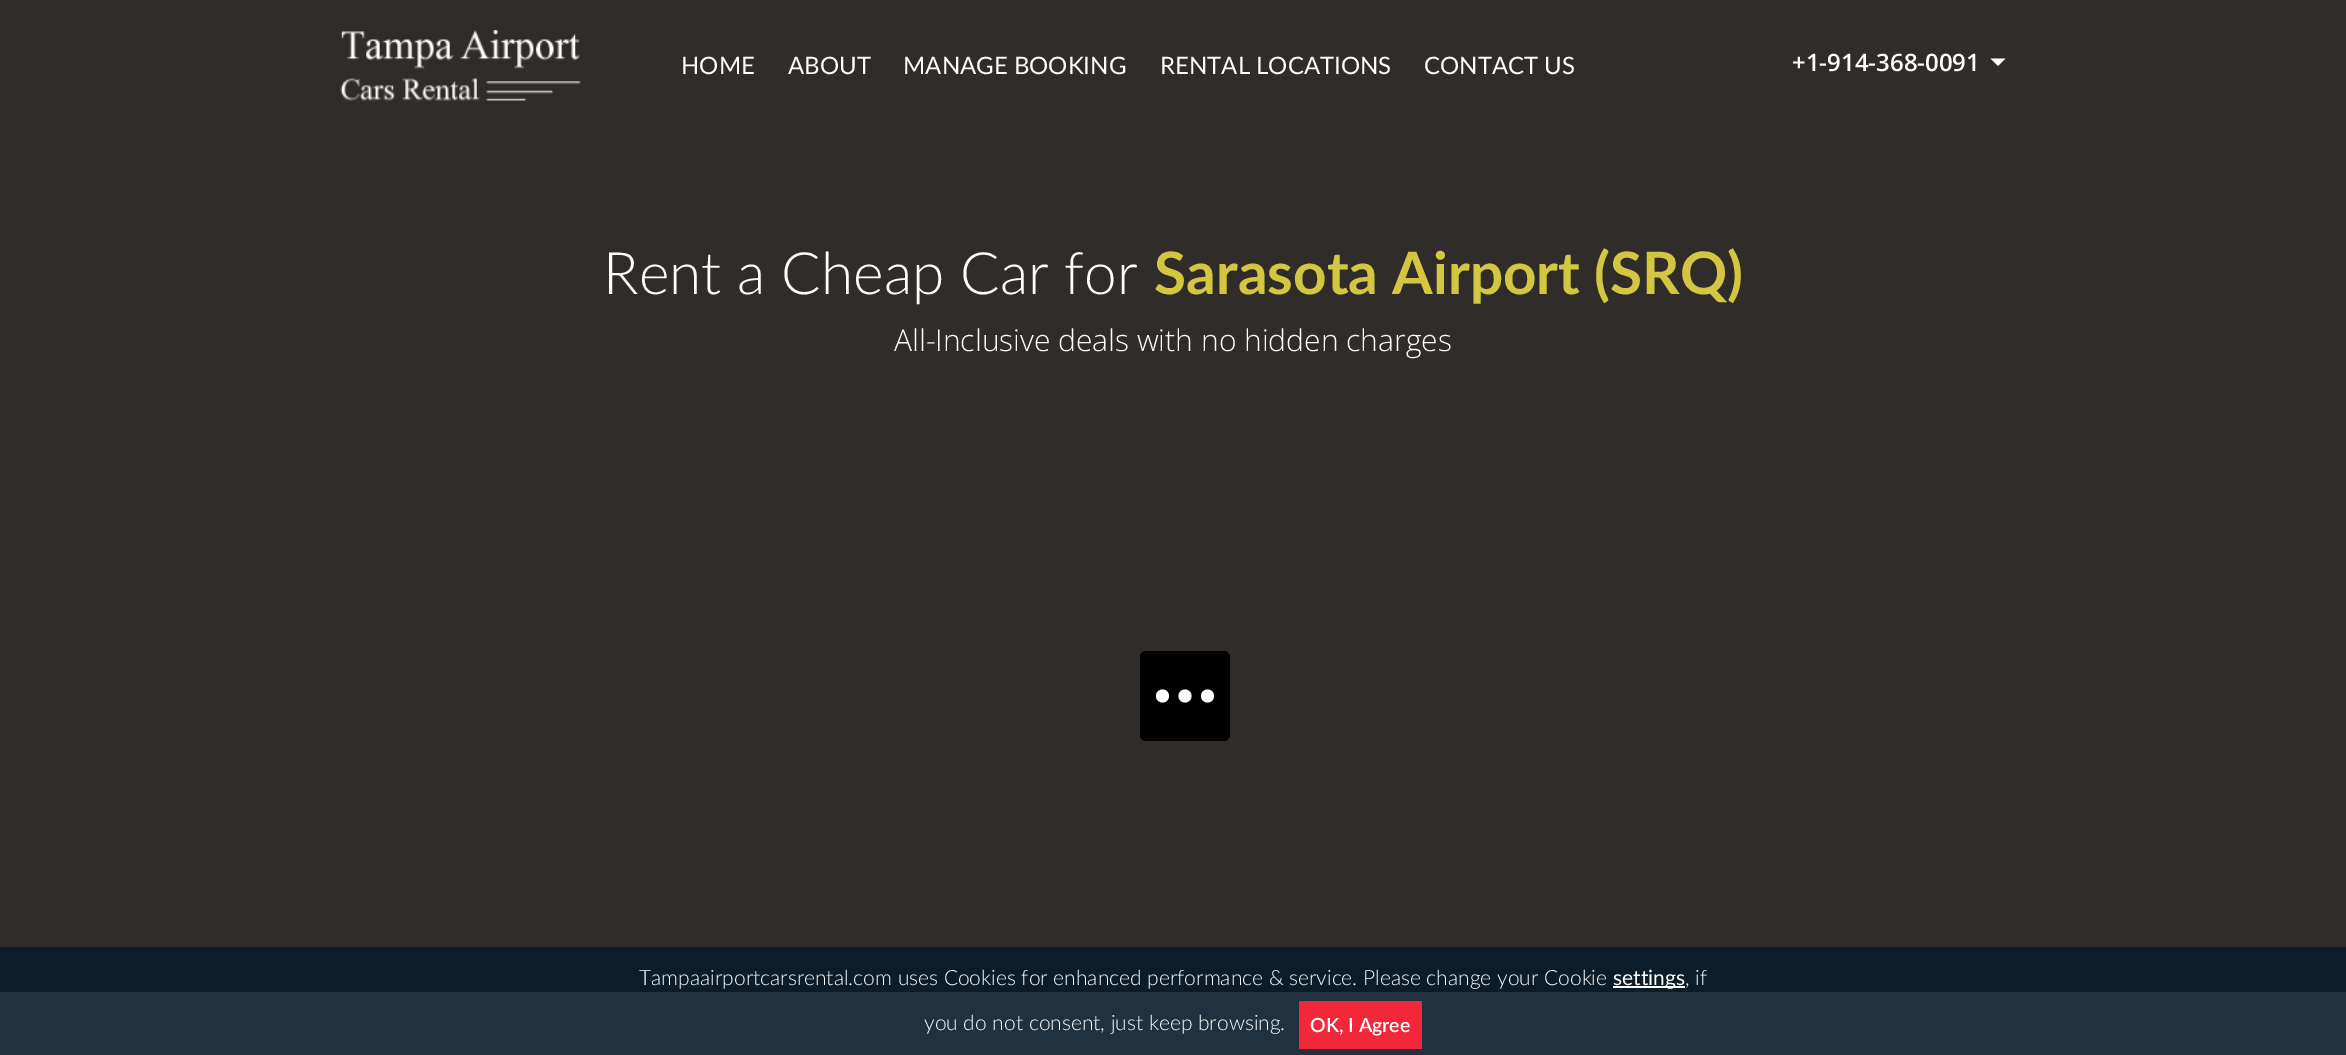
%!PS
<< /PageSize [2346 1055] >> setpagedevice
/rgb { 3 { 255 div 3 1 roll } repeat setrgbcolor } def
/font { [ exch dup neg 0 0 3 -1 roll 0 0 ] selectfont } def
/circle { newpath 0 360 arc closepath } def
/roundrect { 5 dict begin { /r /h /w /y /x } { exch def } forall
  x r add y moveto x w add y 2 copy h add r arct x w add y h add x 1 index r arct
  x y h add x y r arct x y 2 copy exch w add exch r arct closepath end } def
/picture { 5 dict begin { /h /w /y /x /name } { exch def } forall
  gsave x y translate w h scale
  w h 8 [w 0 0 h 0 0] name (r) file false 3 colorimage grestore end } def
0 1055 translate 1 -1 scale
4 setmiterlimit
33 50 62 rgb
0 0 2346 1055 rectfill
48 44 41 rgb
0 0 2346 947 rectfill
(img/1.rgb) 340 30 241 71 picture
255 255 255 rgb
1990.5 58.5 moveto 2005.5 58.5 lineto 1998 66 lineto closepath fill
12 29 41 rgb
0 947 2346 45 rectfill
0 0 0 rgb
1140 651 90 90 6 roundrect fill
255 255 255 rgb
1162.5 696 6.5 circle fill
1185 696 6.5 circle fill
1207.5 696 6.5 circle fill
1613 986 72 2 rectfill
242 39 58 rgb
1299 1001 123 48 rectfill
/Lato-Regular 24 font
255 255 255 rgb
[
  [(HOME) 681 74]
  [(ABOUT) 788 74]
  [(MANAGE BOOKING) 903 74]
  [(RENTAL LOCATIONS) 1160 74]
  [(CONTACT US) 1424 74]
] { aload pop moveto show } forall
/OpenSans-SemiBold 24 font
1792 71 moveto (+1-914-368-0091) show
/Lato-Light 58.5 font
603 294 moveto (Rent a Cheap Car for) show
/Lato-Bold 58.5 font
211 199 65 rgb
1154 294 moveto (Sarasota Airport \(SRQ\)) show
/OpenSans-Light 30 font
255 255 255 rgb
894 351 moveto (All-Inclusive deals with no hidden charges) show
/Lato-Light 21 font
639 985 moveto (Tampaairportcarsrental.com uses Cookies for enhanced performance & service. Please change your Cookie) show
/Lato-Regular 21 font
1613 985 moveto (settings) show
/Lato-Light 21 font
1685 985 moveto (, if) show
924 1030 moveto (you do not consent, just keep browsing.) show
/Lato-SemiBold 19.5 font
1310 1032 moveto (OK, I Agree) show
showpage
